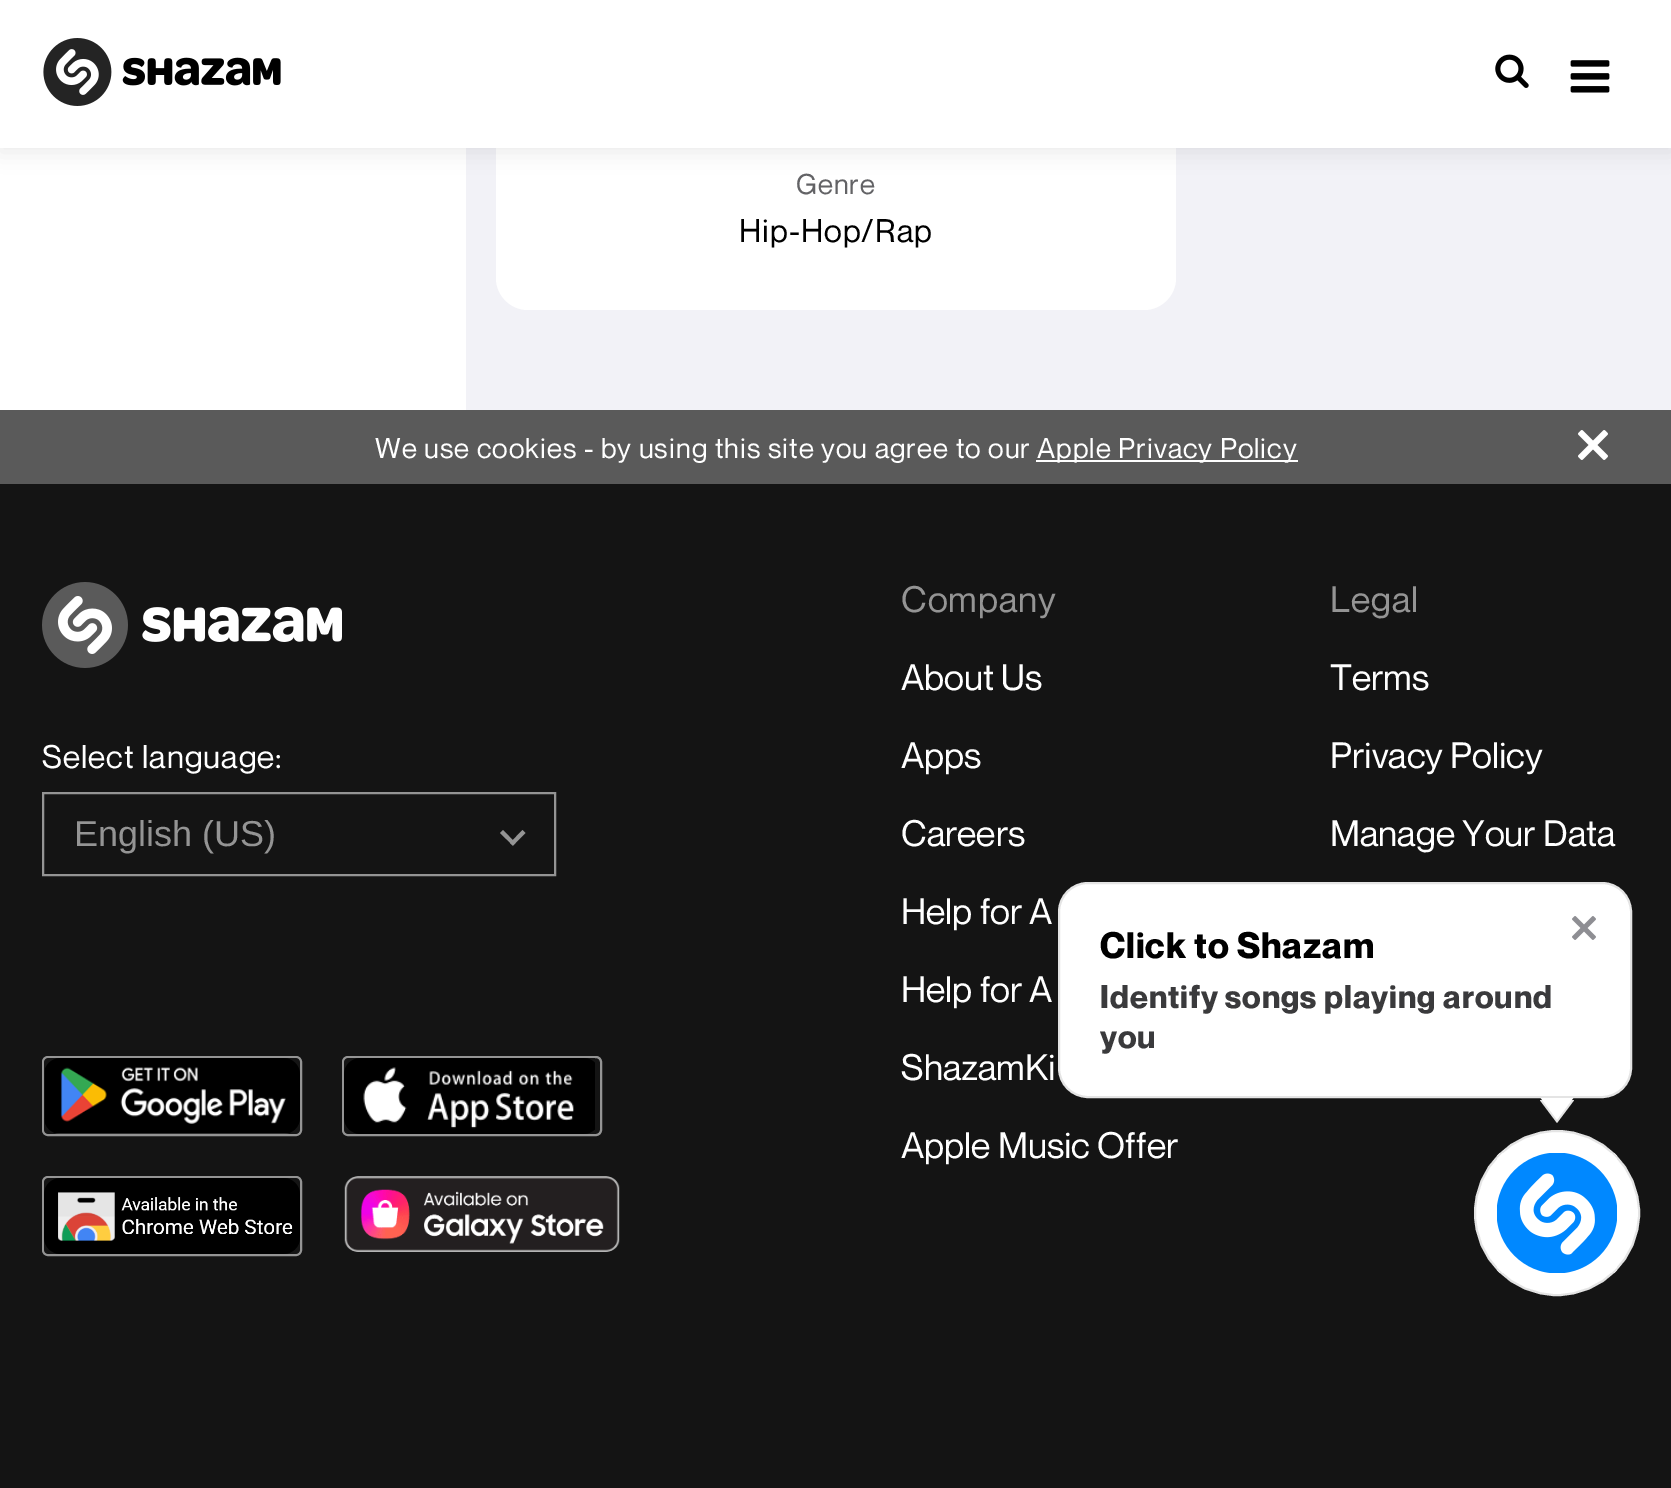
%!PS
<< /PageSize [1671 1488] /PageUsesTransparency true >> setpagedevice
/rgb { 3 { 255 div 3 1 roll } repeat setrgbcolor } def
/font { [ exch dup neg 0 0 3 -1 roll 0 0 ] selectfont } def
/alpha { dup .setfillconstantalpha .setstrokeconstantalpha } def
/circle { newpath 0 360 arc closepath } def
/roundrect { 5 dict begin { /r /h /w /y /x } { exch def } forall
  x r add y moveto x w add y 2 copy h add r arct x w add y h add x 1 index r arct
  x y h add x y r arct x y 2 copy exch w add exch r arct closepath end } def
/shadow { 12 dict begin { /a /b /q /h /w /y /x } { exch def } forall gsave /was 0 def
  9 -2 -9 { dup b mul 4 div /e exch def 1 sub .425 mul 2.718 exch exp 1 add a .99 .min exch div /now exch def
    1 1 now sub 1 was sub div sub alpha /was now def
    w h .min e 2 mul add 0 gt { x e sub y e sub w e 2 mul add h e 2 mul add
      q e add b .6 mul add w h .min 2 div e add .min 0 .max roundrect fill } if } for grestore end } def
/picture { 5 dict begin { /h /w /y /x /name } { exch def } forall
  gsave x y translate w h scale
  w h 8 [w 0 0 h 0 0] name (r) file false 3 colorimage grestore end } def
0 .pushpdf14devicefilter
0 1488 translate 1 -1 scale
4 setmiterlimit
255 255 255 rgb
0 0 1671 1488 rectfill
242 242 247 rgb
466 148 1205 262 rectfill
255 255 255 rgb
496 106 moveto 1176 106 lineto 1176 278 lineto 1176 295.5 1161.5 310 1144 310 curveto 528 310 lineto 510.5 310 496 295.5 496 278 curveto closepath fill
0 0 0 rgb
0 4 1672 148 0 10 0.08 shadow
255 255 255 rgb
0 0 1671 148 rectfill
(img/1.rgb) 43 38 238 68 picture
(img/2.rgb) 1495 54 34 34 picture
(img/3.rgb) 1570 60 40 33 picture
[
  [0 484 1671 1004 20 20 20]
  [0 410 1671 74 90 90 90]
  [1036 460 262 2 255 255 255]
] { aload pop rgb rectfill } forall
(img/4.rgb) 1578 430 30 30 picture
(img/5.rgb) 42 582 300 86 picture
148 148 148 rgb
510 843 moveto 522.5 830 lineto 525.5 833 lineto 513 845.5 lineto closepath fill
500 833 moveto 503 830 lineto 515.5 843 lineto 513 845.5 lineto closepath fill
2 setlinewidth
43 793 512 82 rectstroke
43 1057 258 78 5 roundrect stroke
(img/6.rgb) 44 1058 256 76 picture
343 1057 258 78 5 roundrect stroke
(img/7.rgb) 344 1058 251 76 picture
43 1177 258 78 5 roundrect stroke
(img/8.rgb) 44 1178 256 76 picture
(img/9.rgb) 344 1176 276 76 picture
255 255 255 rgb
1059 883 572 214 29 roundrect gsave fill grestore
228 228 228 rgb
stroke
(img/10.rgb) 1572 916 24 24 picture
gsave
1540 1100 34 28 rectclip
6 setlinewidth
1542 1098 moveto 1572 1098 lineto 1557 1118 lineto closepath stroke
grestore
255 255 255 rgb
1542 1098 moveto 1572 1098 lineto 1557 1118 lineto closepath fill
gsave
1540 1098 34 30 rectclip
1542 1098 moveto 1572 1098 lineto 1557 1118 lineto closepath stroke
grestore
1557 1213 82 circle gsave fill grestore
228 228 228 rgb
stroke
(img/11.rgb) 1497 1153 120 120 picture
/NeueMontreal-Regular 28 font
99 99 102 rgb
796 194 moveto 1 0 (Genre) ashow
/NeueMontreal-Regular 32 font
0 0 0 rgb
739 242 moveto 1 0 (Hip-Hop/Rap) ashow
/NeueMontreal-Regular 28 font
255 255 255 rgb
375 458 moveto 1 0 (We use cookies - by using this site you agree to our) ashow
1037 458 moveto 1 0 (Apple Privacy Policy) ashow
/NeueMontreal-Regular 32 font
42 768 moveto 1 0 (Select language:) ashow
/LiberationSans-Regular 36 font
148 148 148 rgb
74 846 moveto (English \(US\)) show
/NeueMontreal-Regular 36 font
901 612 moveto 1 0 (Company) ashow
255 255 255 rgb
[
  [(About Us) 901 690]
  [(Apps) 901 768]
  [(Careers) 901 846]
  [(Help for A) 901 924]
  [(Help for A) 901 1002]
  [(ShazamKi) 901 1080]
  [(Apple Music Offer) 901 1158]
] { aload pop moveto show } forall
148 148 148 rgb
1330 612 moveto 1 0 (Legal) ashow
255 255 255 rgb
[
  [(Terms) 1330 690]
  [(Privacy Policy) 1330 768]
  [(Manage Your Data) 1330 846]
] { aload pop moveto show } forall
/NeueMontreal-Bold 36 font
0 0 0 rgb
1100 958 moveto 1 0 (Click to Shazam) ashow
/NeueMontreal-Bold 32 font
58 58 60 rgb
1100 1008 moveto 1 0 (Identify songs playing around) ashow
1100 1048 moveto 1 0 (you) ashow
.poppdf14devicefilter showpage
